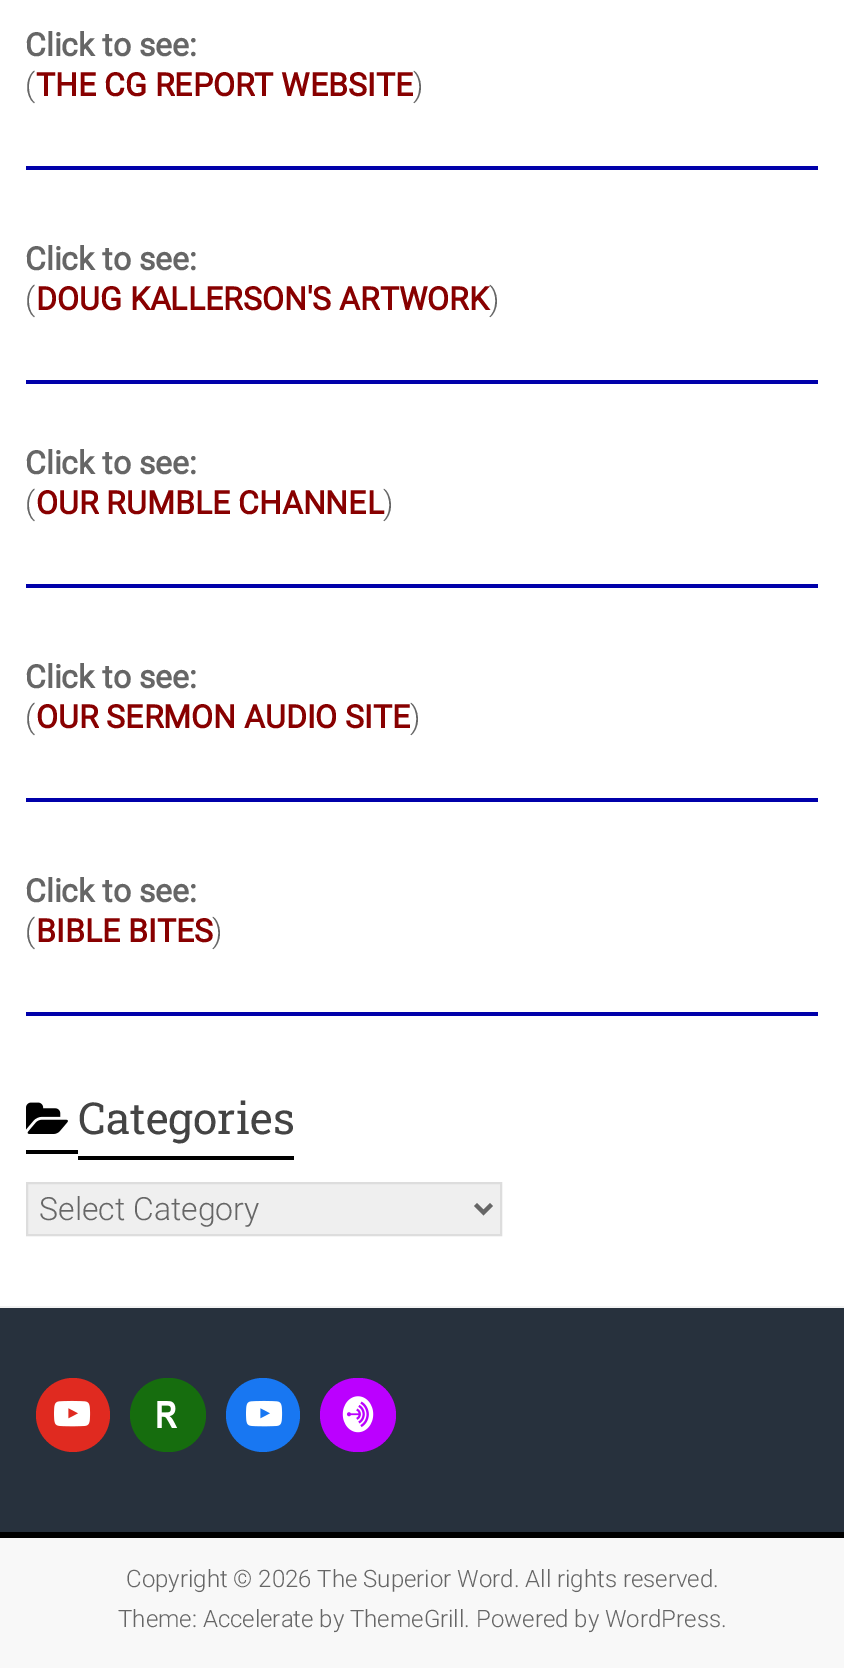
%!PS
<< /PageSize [844 1668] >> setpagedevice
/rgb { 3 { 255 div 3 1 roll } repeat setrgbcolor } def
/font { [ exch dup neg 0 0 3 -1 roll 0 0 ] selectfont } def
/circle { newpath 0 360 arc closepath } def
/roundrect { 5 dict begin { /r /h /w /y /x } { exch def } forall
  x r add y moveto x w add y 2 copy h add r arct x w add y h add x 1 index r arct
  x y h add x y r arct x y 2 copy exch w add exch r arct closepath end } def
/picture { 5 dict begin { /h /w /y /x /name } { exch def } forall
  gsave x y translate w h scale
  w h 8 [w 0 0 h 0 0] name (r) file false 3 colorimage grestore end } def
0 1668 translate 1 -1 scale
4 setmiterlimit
255 255 255 rgb
0 0 844 1668 rectfill
[
  [26 166 792 4 0 0 170]
  [26 380 792 4 0 0 170]
  [26 584 792 4 0 0 170]
  [26 798 792 4 0 0 170]
  [26 1012 792 4 0 0 170]
] { aload pop rgb rectfill } forall
(img/1.rgb) 26 1102 42 32 picture
0 0 0 rgb
26 1150 52 4 rectfill
78 1156 216 4 rectfill
239 239 239 rgb
27 1183 moveto 501 1183 lineto 501 1235 lineto 27 1235 lineto closepath gsave fill grestore
221 221 221 rgb
2 setlinewidth
stroke
102 102 102 rgb
4 setlinewidth
475.5 1204.5 moveto 483.5 1212.5 lineto 491.5 1204.5 lineto stroke
39 49 61 rgb
0 1308 844 224 rectfill
242 242 242 rgb
0 1306 844 2 rectfill
224 42 32 rgb
73 1415 37 circle fill
(img/2.rgb) 54 1400 37 27 picture
22 109 14 rgb
130 1378 76 74 37 roundrect fill
(img/3.rgb) 157 1401 21 27 picture
24 119 242 rgb
263 1415 37 circle fill
(img/4.rgb) 246 1400 37 27 picture
187 0 255 rgb
320 1378 76 74 37 roundrect fill
(img/5.rgb) 342 1396 32 37 picture
248 248 248 rgb
0 1538 844 130 rectfill
0 0 0 rgb
0 1532 844 6 rectfill
/Roboto-Bold 32 font
102 102 102 rgb
25 56 moveto (Click to see:) show
/Roboto-Light 32 font
25 96 moveto (\() show
/Roboto-Bold 32 font
136 0 0 rgb
36 96 moveto (THE CG REPORT WEBSITE) show
/Roboto-Light 32 font
102 102 102 rgb
413 96 moveto (\)) show
/Roboto-Bold 32 font
25 270 moveto (Click to see:) show
/Roboto-Light 32 font
25 310 moveto (\() show
/Roboto-Bold 32 font
136 0 0 rgb
36 310 moveto (DOUG KALLERSON'S ARTWORK) show
/Roboto-Light 32 font
102 102 102 rgb
489 310 moveto (\)) show
/Roboto-Bold 32 font
25 474 moveto (Click to see:) show
/Roboto-Light 32 font
25 514 moveto (\() show
/Roboto-Bold 32 font
136 0 0 rgb
36 514 moveto (OUR RUMBLE CHANNEL) show
/Roboto-Light 32 font
102 102 102 rgb
383 514 moveto (\)) show
/Roboto-Bold 32 font
25 688 moveto (Click to see:) show
/Roboto-Light 32 font
25 728 moveto (\() show
/Roboto-Bold 32 font
136 0 0 rgb
36 728 moveto (OUR SERMON AUDIO SITE) show
/Roboto-Light 32 font
102 102 102 rgb
410 728 moveto (\)) show
/Roboto-Bold 32 font
25 902 moveto (Click to see:) show
/Roboto-Light 32 font
25 942 moveto (\() show
/Roboto-Bold 32 font
136 0 0 rgb
36 942 moveto (BIBLE BITES) show
/Roboto-Light 32 font
102 102 102 rgb
212 942 moveto (\)) show
/RobotoSlab-Regular 44 font
68 68 68 rgb
78 1134 moveto (Categories) show
/Roboto-Light 32 font
102 102 102 rgb
39 1220 moveto (Select Category) show
/Roboto-Light 24 font
126 1587 moveto (Copyright © 2026 The Superior Word. All rights reserved.) show
118 1627 moveto (Theme: Accelerate by ThemeGrill. Powered by WordPress.) show
showpage
